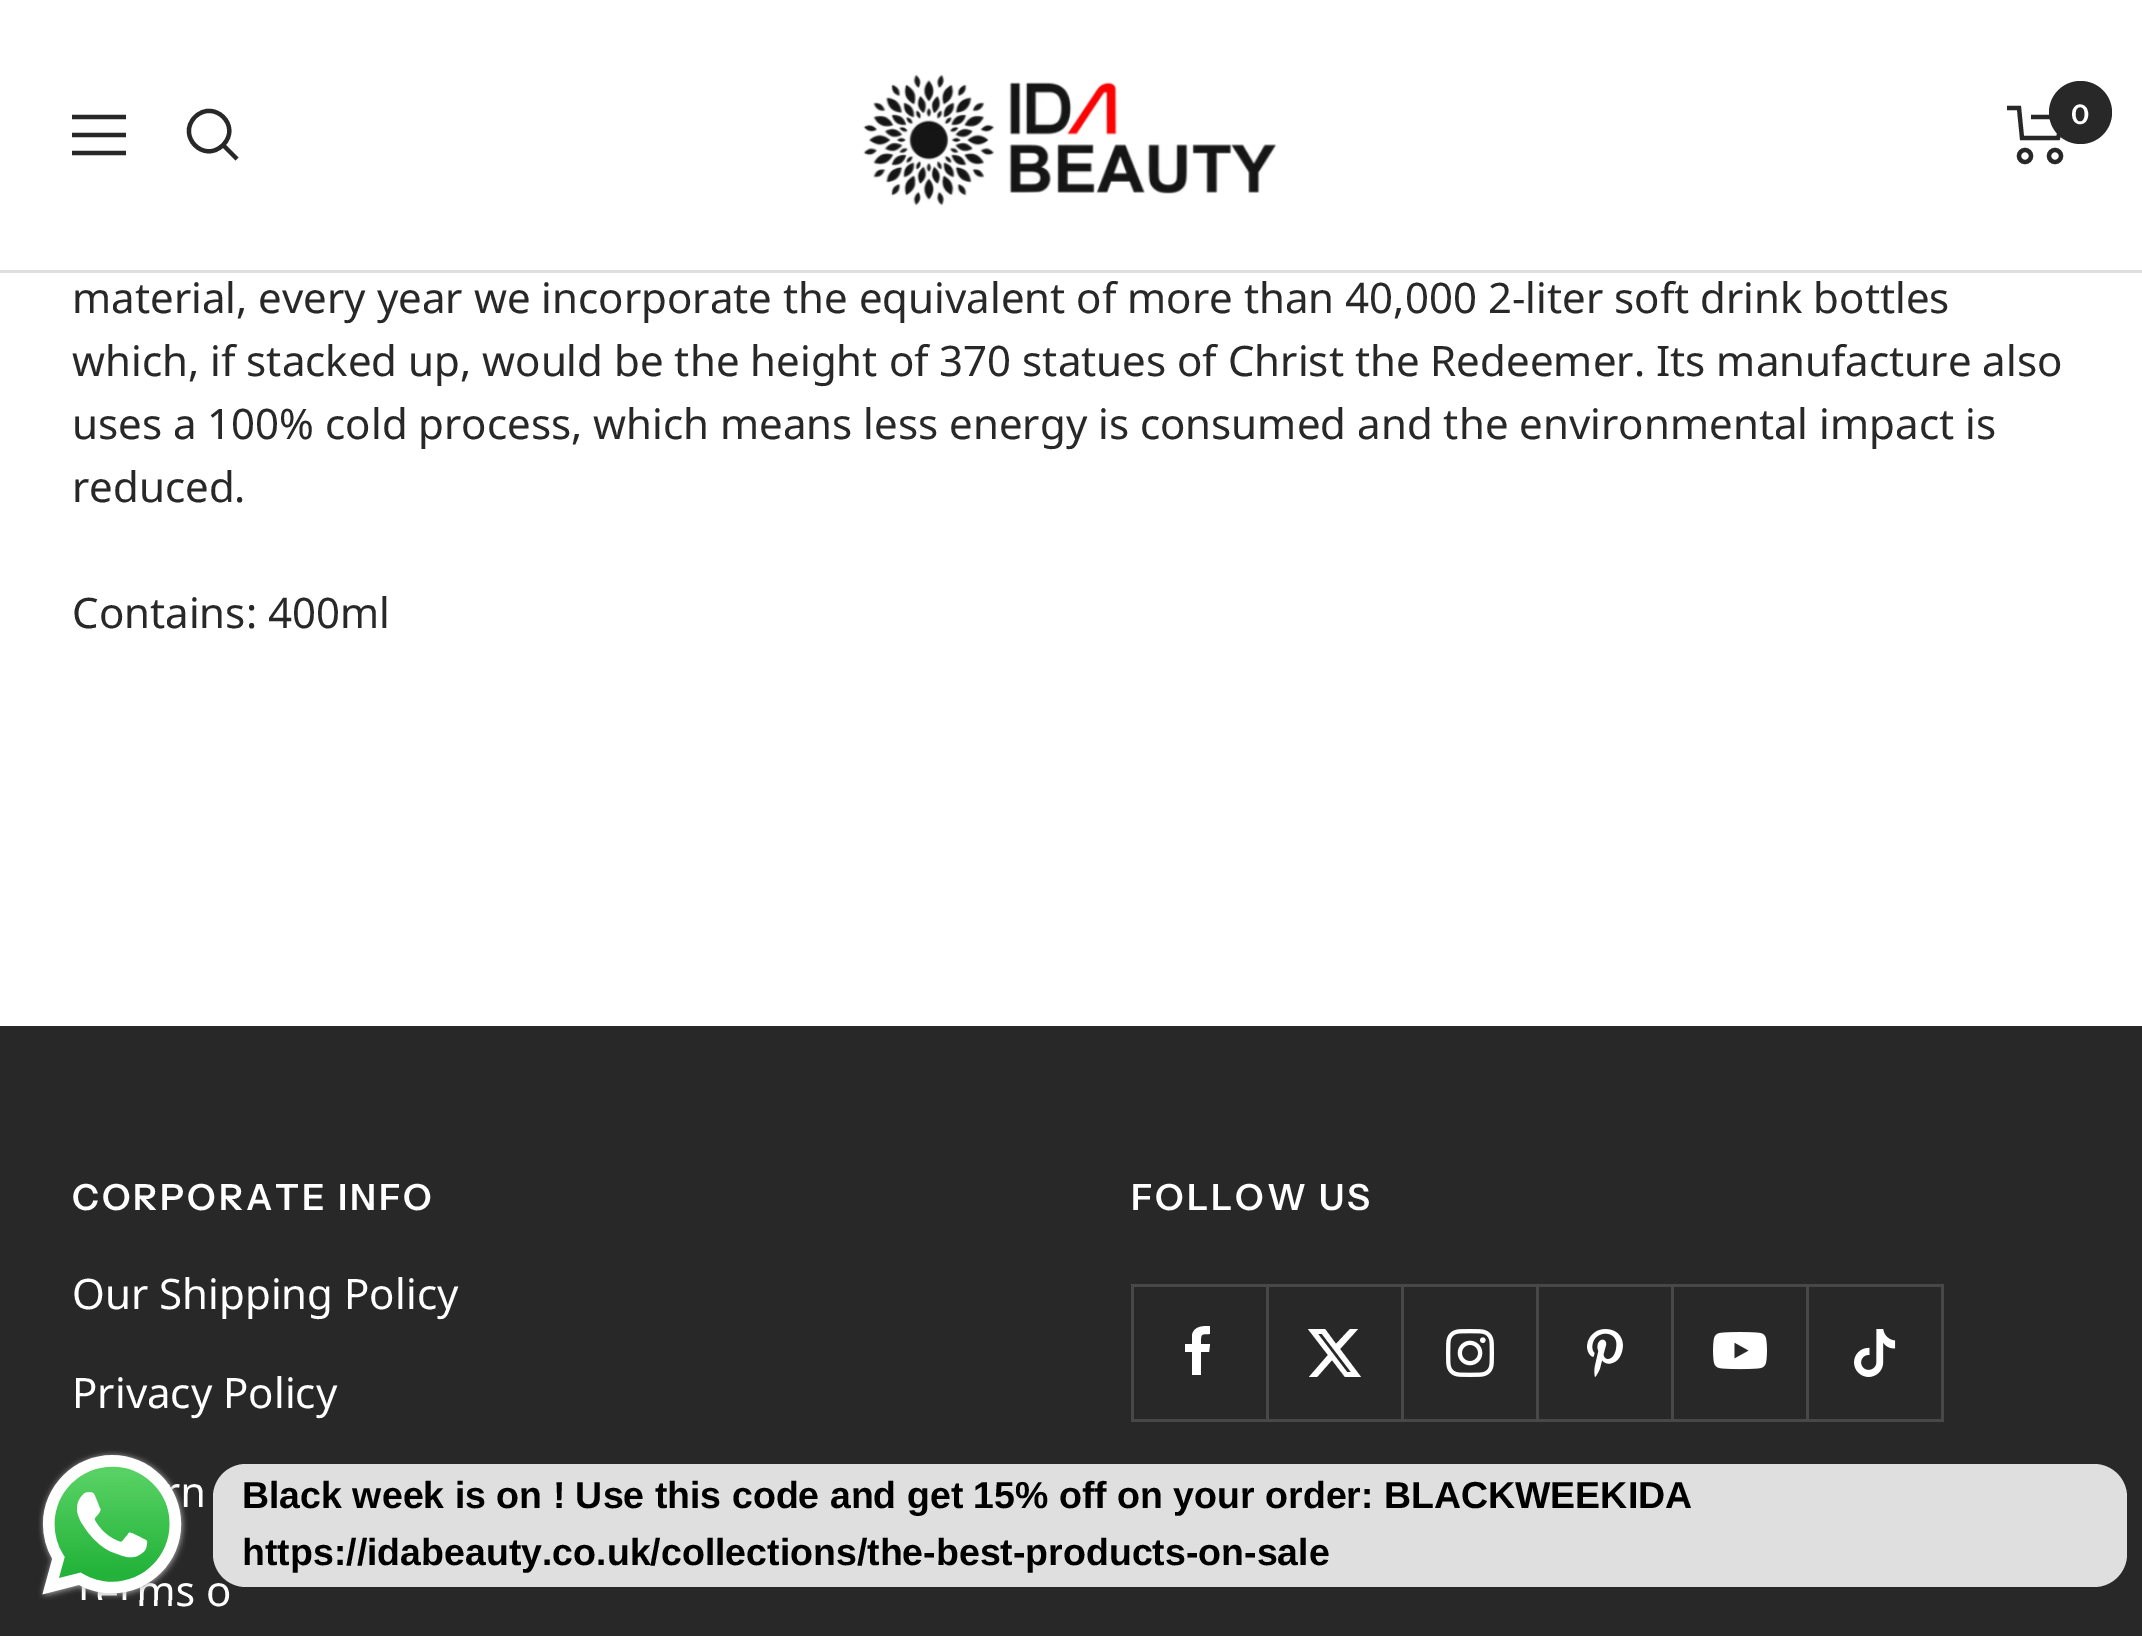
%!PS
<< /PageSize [2142 1636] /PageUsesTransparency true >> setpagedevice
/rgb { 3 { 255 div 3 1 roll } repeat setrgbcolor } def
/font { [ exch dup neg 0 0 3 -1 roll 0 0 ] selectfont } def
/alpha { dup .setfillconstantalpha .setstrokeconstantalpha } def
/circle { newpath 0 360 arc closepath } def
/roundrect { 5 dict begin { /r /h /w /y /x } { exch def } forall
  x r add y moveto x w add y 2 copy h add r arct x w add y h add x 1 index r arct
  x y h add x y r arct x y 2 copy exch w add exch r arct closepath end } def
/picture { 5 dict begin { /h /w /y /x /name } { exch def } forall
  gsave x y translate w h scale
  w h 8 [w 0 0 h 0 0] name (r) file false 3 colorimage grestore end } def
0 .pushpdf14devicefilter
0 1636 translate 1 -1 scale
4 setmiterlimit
255 255 255 rgb
0 0 2142 1636 rectfill
223 223 223 rgb
0 270 2142 3 rectfill
40 40 40 rgb
4.2 setlinewidth
72 117 moveto 126 117 lineto 72 153 moveto 126 153 lineto closepath 72 135 moveto 126 135 lineto closepath stroke
223 145 moveto 242 126 214 98.5 195 117 curveto 176.5 136 204 164 223 145 curveto closepath 223 145 moveto 237 159 lineto stroke
(img/1.rgb) 863 74 414 132 picture
2007 108 moveto 2019 108 lineto 2022 138 lineto 2058 138 lineto 2064 117 lineto 2031 117 lineto stroke
2025 156 6 circle stroke
2055 156 6 circle stroke
2080.5 112.5 31.5 circle fill
0 1026 2142 610 rectfill
72 72 72 rgb
1134 1419 moveto 1134 1422 lineto 1269 1422 lineto 1269 1287 lineto 1266 1287 lineto 1266 1419 lineto closepath fill
[
  [1131 1419 3 3 72 72 72]
  [1131 1284 138 3 72 72 72]
  [1131 1284 3 135 72 72 72]
] { aload pop rgb rectfill } forall
255 255 255 rgb
1192 1375 moveto 1192 1352 lineto 1185 1352 lineto 1185 1344 lineto 1192 1344 lineto 1192 1335 lineto 1194 1326 1203 1326 1210 1326 curveto 1210 1334 lineto 1200 1334 1201 1334 1201 1344 curveto 1210 1344 lineto 1209 1352 lineto 1201 1352 lineto 1201 1375 lineto closepath eofill
72 72 72 rgb
1269 1419 moveto 1269 1422 lineto 1404 1422 lineto 1404 1287 lineto 1401 1287 lineto 1401 1419 lineto closepath fill
1266 1284 138 3 rectfill
255 255 255 rgb
1350 1329 moveto 1358 1329 lineto 1340 1349 lineto 1361 1377 lineto 1345 1377 lineto 1332 1360 lineto 1317 1377 lineto 1309 1377 lineto 1328 1355 lineto 1308 1329 lineto 1325 1329 lineto 1336 1344 lineto closepath 1347 1372 moveto 1351 1372 lineto 1322 1334 lineto 1318 1334 lineto closepath fill
72 72 72 rgb
1404 1419 moveto 1404 1422 lineto 1539 1422 lineto 1539 1287 lineto 1536 1287 lineto 1536 1419 lineto closepath fill
1401 1284 138 3 rectfill
(img/2.rgb) 1446 1329 48 48 picture
1539 1419 moveto 1539 1422 lineto 1674 1422 lineto 1674 1287 lineto 1671 1287 lineto 1671 1419 lineto closepath fill
1536 1284 138 3 rectfill
(img/3.rgb) 1587 1329 36 48 picture
1674 1419 moveto 1674 1422 lineto 1809 1422 lineto 1809 1287 lineto 1806 1287 lineto 1806 1419 lineto closepath fill
1671 1284 138 3 rectfill
(img/4.rgb) 1713 1332 54 38 picture
1809 1419 moveto 1809 1422 lineto 1944 1422 lineto 1944 1287 lineto 1941 1287 lineto 1941 1419 lineto closepath fill
1806 1284 138 3 rectfill
(img/5.rgb) 1854 1329 42 48 picture
/InstrumentSans-SemiBold 27 font
255 255 255 rgb
2071 124 moveto (0) show
/NotoSans-Regular 42 font
40 40 40 rgb
[
  [(material, every year we incorporate the equivalent of more than 40,000 2-liter soft drink bottles) 72 313]
  [(which, if stacked up, would be the height of 370 statues of Christ the Redeemer. Its manufacture also) 72 376]
  [(uses a 100% cold process, which means less energy is consumed and the environmental impact is) 72 439]
  [(reduced.) 72 502]
  [(Contains: 400ml) 72 628]
] { aload pop moveto show } forall
/InstrumentSans-SemiBold 36 font
255 255 255 rgb
72 1210 moveto 3 0 (CORPORATE INFO) ashow
/NotoSans-Regular 42 font
[
  [(Our Shipping Policy) 72 1309]
  [(Privacy Policy) 72 1408]
  [(n) 180 1507]
  [(ms o) 136 1606]
] { aload pop moveto show } forall
/InstrumentSans-SemiBold 36 font
1131 1210 moveto 3 0 (FOLLOW US) ashow
(img/6.rgb) 38 1450 150 150 picture
0.85 alpha
213 1464 1914 123 33 roundrect fill
/LiberationSans-Bold 37.5 font
1 alpha
0 0 0 rgb
242 1508 moveto (Black week is on ! Use this code and get 15% off on your order: BLACKWEEKIDA) show
242 1565 moveto (https://idabeauty.co.uk/collections/the-best-products-on-sale) show
.poppdf14devicefilter showpage
